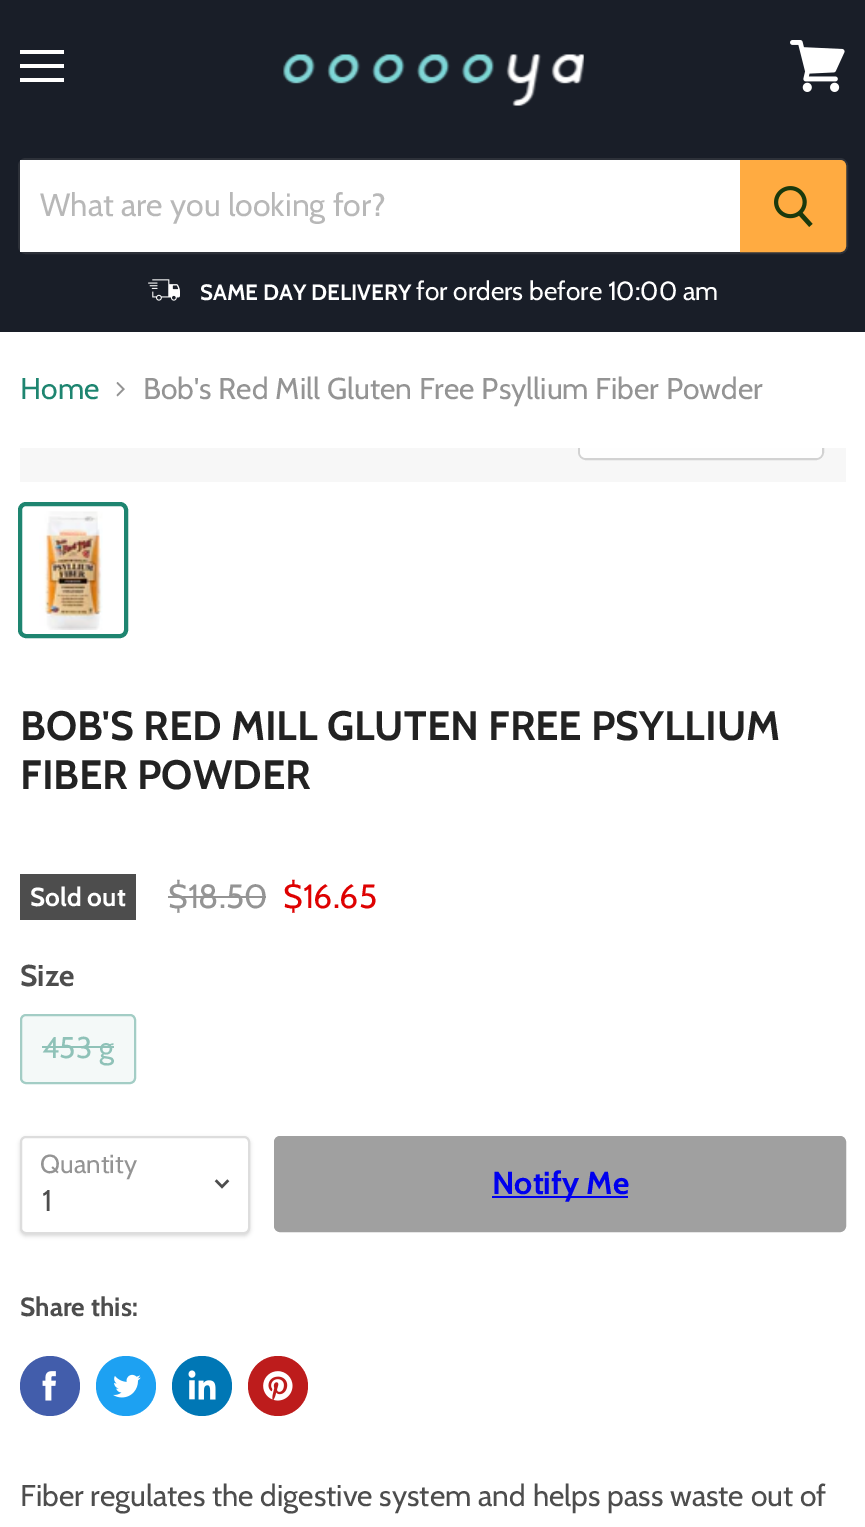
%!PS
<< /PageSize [865 1527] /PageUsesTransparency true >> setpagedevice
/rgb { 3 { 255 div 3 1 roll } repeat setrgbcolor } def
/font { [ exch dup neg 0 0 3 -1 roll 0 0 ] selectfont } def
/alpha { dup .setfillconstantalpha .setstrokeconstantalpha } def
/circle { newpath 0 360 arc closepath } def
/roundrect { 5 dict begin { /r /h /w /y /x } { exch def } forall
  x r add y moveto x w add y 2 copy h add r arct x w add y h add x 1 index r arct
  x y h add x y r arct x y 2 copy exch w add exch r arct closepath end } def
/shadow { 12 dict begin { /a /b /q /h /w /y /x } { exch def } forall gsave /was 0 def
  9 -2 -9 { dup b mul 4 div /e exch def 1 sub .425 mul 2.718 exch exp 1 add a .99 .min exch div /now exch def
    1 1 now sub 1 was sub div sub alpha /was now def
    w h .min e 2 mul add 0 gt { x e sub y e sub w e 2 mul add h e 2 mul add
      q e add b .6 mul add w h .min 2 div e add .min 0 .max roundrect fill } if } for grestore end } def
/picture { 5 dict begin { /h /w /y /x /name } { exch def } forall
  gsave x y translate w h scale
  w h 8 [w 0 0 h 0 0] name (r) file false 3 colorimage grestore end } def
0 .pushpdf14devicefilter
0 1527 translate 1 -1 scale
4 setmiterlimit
255 255 255 rgb
0 0 865 1527 rectfill
[
  [0 0 865 332 25 30 40]
  [20 50 44 4 255 255 255]
  [20 64 44 4 255 255 255]
  [20 78 44 4 255 255 255]
] { aload pop rgb rectfill } forall
(img/1.rgb) 790 40 55 52 picture
(img/2.rgb) 283 54 301 52 picture
0.2 alpha
127 127 127 rgb
2 setlinewidth
19 159 828 94 7 roundrect stroke
1 alpha
255 255 255 rgb
20 160 720 92 rectfill
255 171 65 rgb
741 161 moveto 840 161 lineto 843 161 845 163 845 166 curveto 845 246 lineto 845 249 843 251 840 251 curveto 741 251 lineto closepath gsave fill grestore
stroke
(img/3.rgb) 774 186 39 41 picture
(img/4.rgb) 148 279 32 22 picture
(img/5.rgb) 116 382 9 15 picture
247 247 247 rgb
20 448 826 34 rectfill
30 133 112 rgb
4 setlinewidth
20 504 106 132 6 roundrect stroke
(img/6.rgb) 39 511 64 119 picture
77 77 77 rgb
20 874 116 46 rectfill
148 148 148 rgb
168 896 98 2 rectfill
244 249 248 rgb
21 1015 114 68 5 roundrect gsave fill grestore
163 205 197 rgb
2 setlinewidth
stroke
143 194 184 rgb
42 1046 72 2 rectfill
0 0 0 rgb
20 1138 230 98 6 2 0.15 shadow
255 255 255 rgb
21 1137 228 96 5 roundrect gsave fill grestore
221 221 221 rgb
stroke
(img/7.rgb) 214 1179 16 10 picture
160 160 160 rgb
275 1137 570 94 5 roundrect gsave fill grestore
stroke
0 0 238 rgb
492 1196 136 2 rectfill
66 93 171 rgb
50 1386 30 circle fill
(img/8.rgb) 42 1371 14 30 picture
29 161 242 rgb
126 1386 30 circle fill
(img/9.rgb) 113 1374 28 24 picture
0 119 181 rgb
202 1386 30 circle fill
(img/10.rgb) 188 1370 28 30 picture
189 28 28 rgb
278 1386 30 circle fill
(img/11.rgb) 263 1371 30 30 picture
/Cabin-Regular 32 font
184 184 184 rgb
40 216 moveto (What are you looking for?) show
/Cabin-Bold 22.25 font
255 255 255 rgb
200 300 moveto (SAME DAY DELIVERY) show
/Cabin-Regular 26.25 font
416 300 moveto (for orders before 10:00 am) show
/Cabin-Regular 30 font
30 133 112 rgb
20 399 moveto (Home) show
148 148 148 rgb
143 399 moveto (Bob's Red Mill Gluten Free Psyllium Fiber Powder) show
gsave
20 448 826 34 rectclip
210 210 210 rgb
579 403 244 56 7 roundrect stroke
grestore
0.9 alpha
255 255 255 rgb
580 448 moveto 822 448 lineto 822 452 lineto 822 455.5 819.5 458 816 458 curveto 586 458 lineto 582.5 458 580 455.5 580 452 curveto closepath fill
/Cabin-Bold 41 font
1 alpha
34 34 34 rgb
20 740 moveto (BOB'S RED MILL GLUTEN FREE PSYLLIUM) show
20 789 moveto (FIBER POWDER) show
/Cabin-Bold 26 font
255 255 255 rgb
30 906 moveto (Sold out) show
/Cabin-Regular 33.5 font
148 148 148 rgb
168 908 moveto ($18.50) show
222 1 1 rgb
283 908 moveto ($16.65) show
/Cabin-Bold 30 font
77 77 77 rgb
20 986 moveto (Size) show
/Cabin-Regular 30 font
143 194 184 rgb
42 1058 moveto (453 g) show
/Cabin-Regular 26 font
148 148 148 rgb
40 1173 moveto (Quantity) show
/Cabin-Regular 30 font
77 77 77 rgb
42 1211 moveto (1) show
/Cabin-Bold 31.75 font
0 0 238 rgb
492 1194 moveto (Notify Me) show
/Cabin-Bold 26.25 font
77 77 77 rgb
20 1316 moveto (Share this:) show
/Cabin-Regular 30 font
20 1506 moveto (Fiber regulates the digestive system and helps pass waste out of) show
.poppdf14devicefilter showpage
